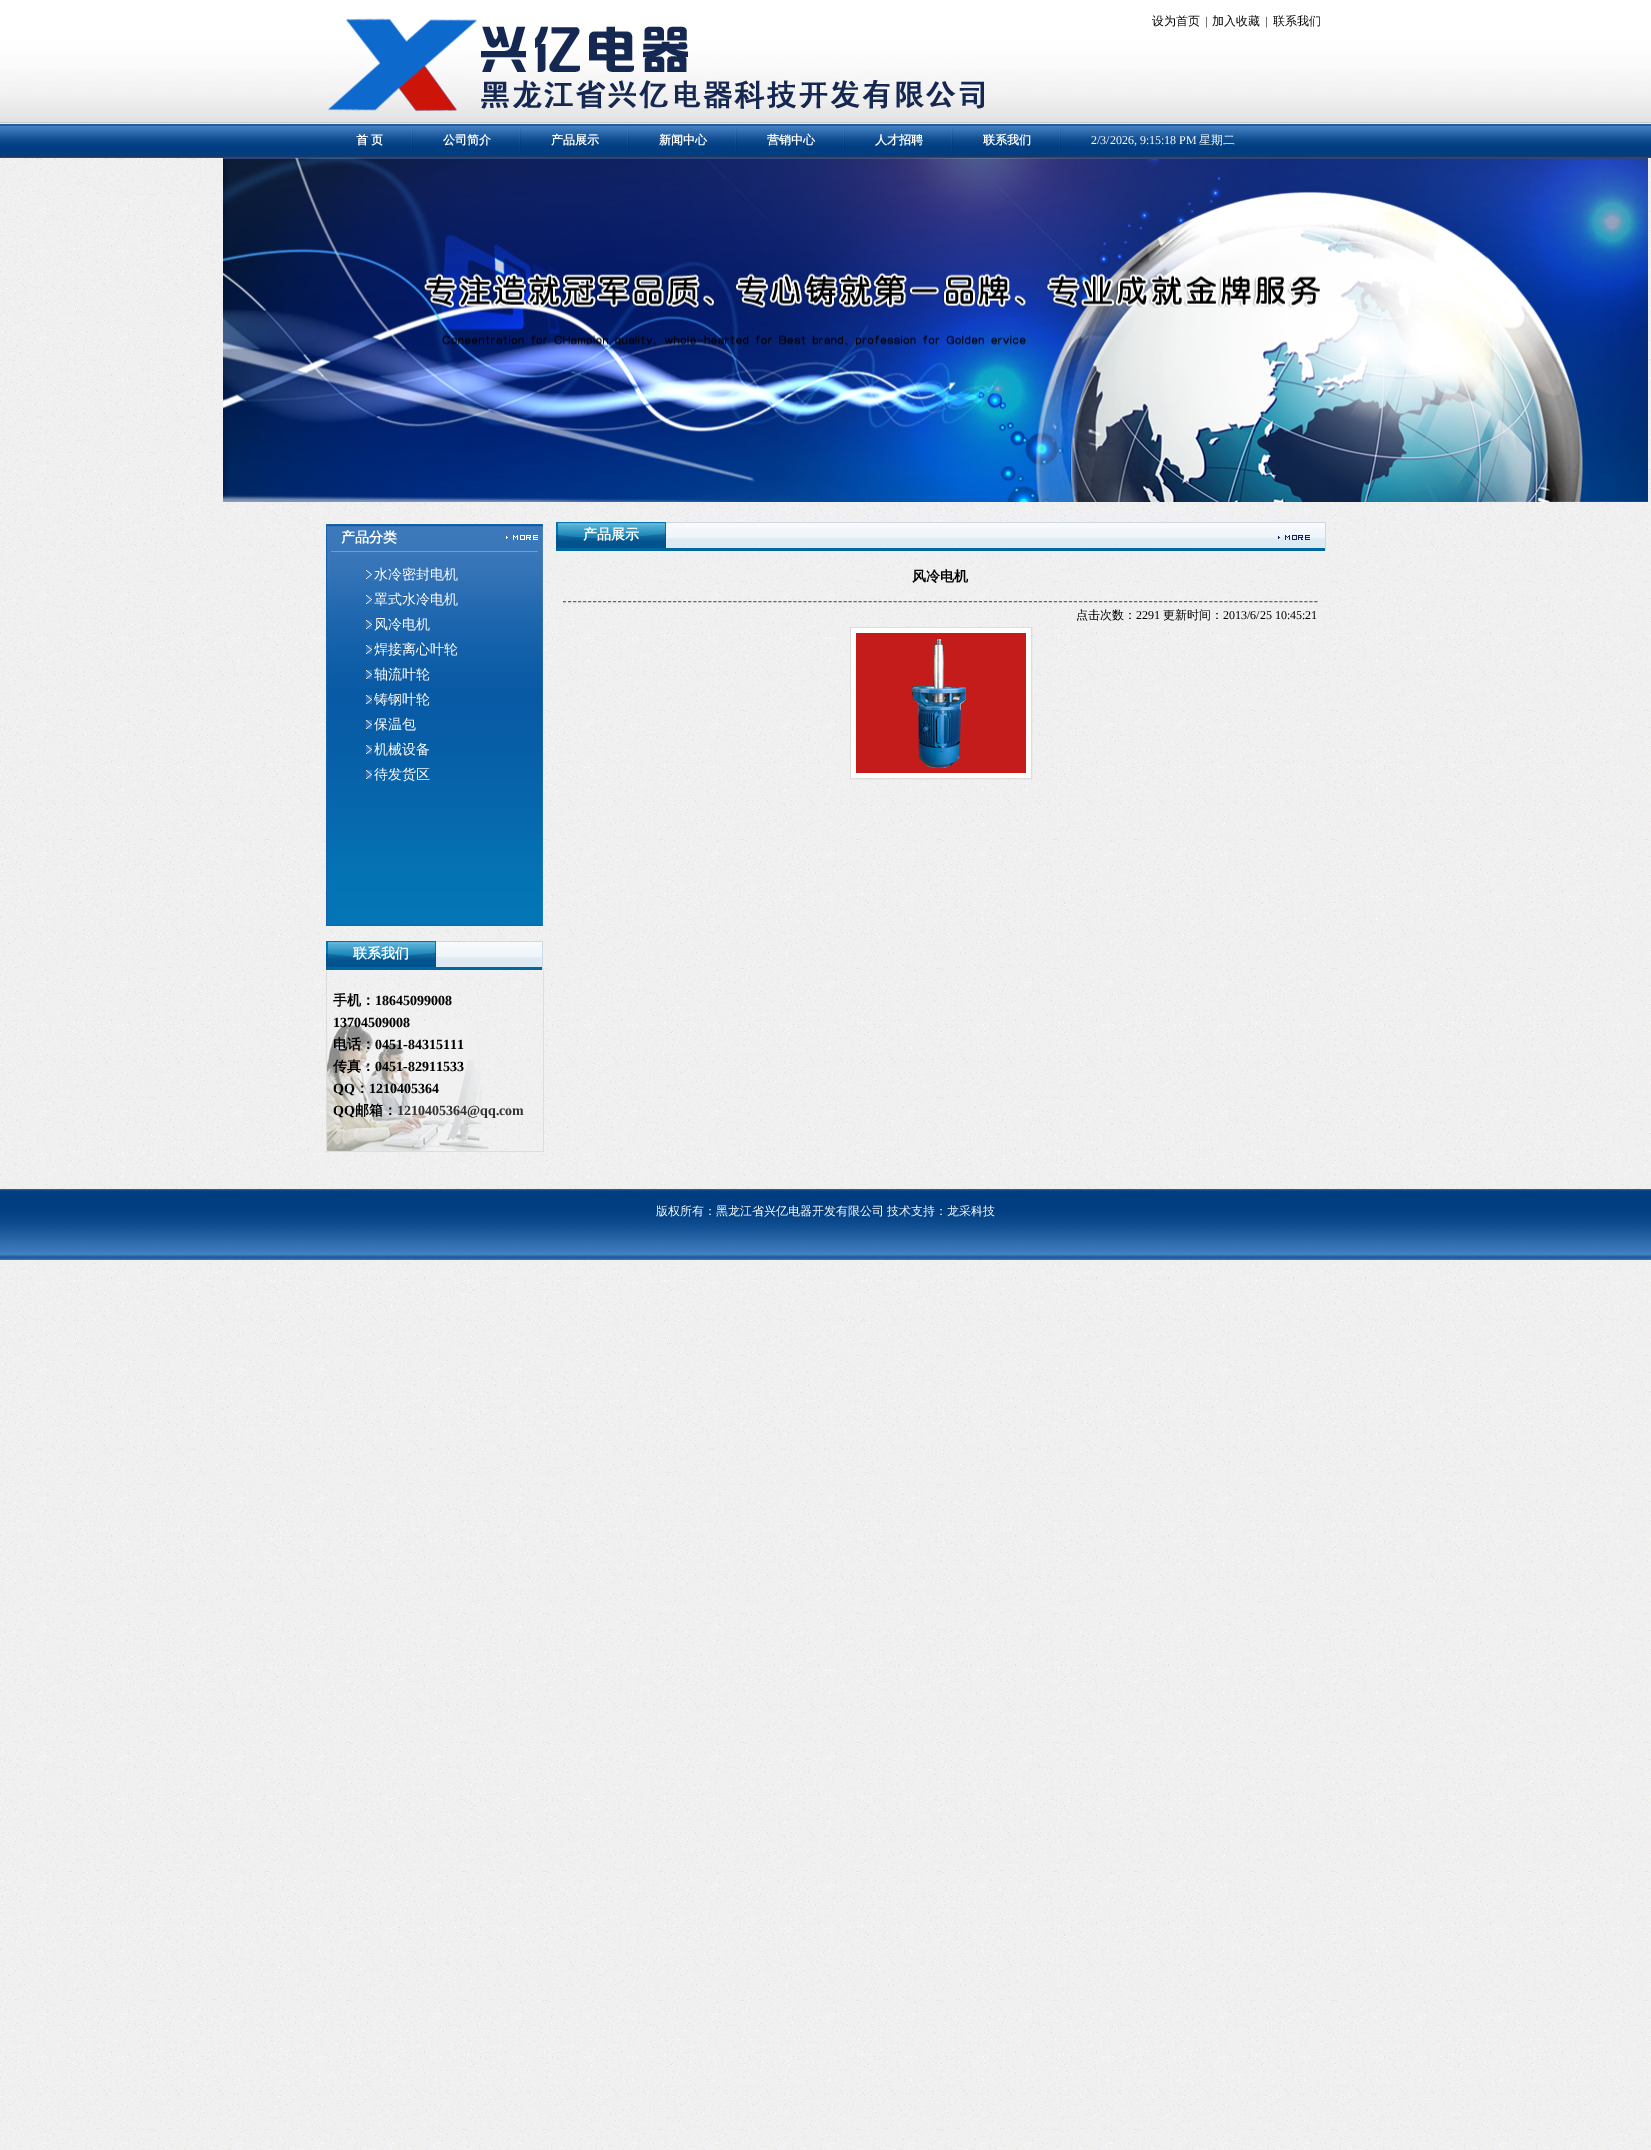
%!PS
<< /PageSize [1651 2150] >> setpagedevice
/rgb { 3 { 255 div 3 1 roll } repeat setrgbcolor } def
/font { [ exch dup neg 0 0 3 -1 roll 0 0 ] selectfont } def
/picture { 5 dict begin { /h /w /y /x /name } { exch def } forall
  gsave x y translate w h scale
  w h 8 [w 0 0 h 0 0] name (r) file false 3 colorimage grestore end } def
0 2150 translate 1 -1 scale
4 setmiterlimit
255 255 255 rgb
0 0 1651 2150 rectfill
(img/1.rgb) 0 158 1651 1992 picture
(img/2.rgb) 0 0 1651 158 picture
(img/3.rgb) 328 18 656 94 picture
(img/4.rgb) 411 127 2 26 picture
(img/4.rgb) 519 127 2 26 picture
(img/5.rgb) 627 126 2 27 picture
(img/4.rgb) 735 127 2 26 picture
(img/4.rgb) 843 127 2 26 picture
(img/4.rgb) 951 127 2 26 picture
(img/4.rgb) 1059 127 2 26 picture
(img/6.rgb) 223 158 1425 344 picture
(img/7.rgb) 326 524 217 402 picture
112 156 200 rgb
331 551 207 1 rectfill
(img/8.rgb) 506 535 32 6 picture
(img/9.rgb) 366 570 6 9 picture
(img/9.rgb) 366 595 6 9 picture
(img/9.rgb) 366 620 6 9 picture
(img/9.rgb) 366 645 6 9 picture
(img/9.rgb) 366 670 6 9 picture
(img/9.rgb) 366 695 6 9 picture
(img/9.rgb) 366 720 6 9 picture
(img/9.rgb) 366 745 6 9 picture
(img/9.rgb) 366 770 6 9 picture
(img/10.rgb) 326 941 216 29 picture
204 218 229 rgb
542 941 1 29 rectfill
(img/11.rgb) 326 941 110 26 picture
(img/12.rgb) 327 1021 165 130 picture
[
  [543 970 1 182 222 220 220]
  [326 1151 218 1 222 220 220]
  [326 970 1 182 222 220 220]
] { aload pop rgb rectfill } forall
(img/13.rgb) 556 522 769 29 picture
204 218 229 rgb
1325 522 1 29 rectfill
(img/11.rgb) 556 522 110 26 picture
(img/14.rgb) 1278 535 32 5 picture
102 102 102 rgb
[3 2.01] 0 setdash
563 601.5 moveto 1318 601.5 lineto stroke
220 220 220 rgb
[] 0 setdash
850.5 627.5 181 151 rectstroke
(img/15.rgb) 851 628 180 150 picture
(img/16.rgb) 0 1189 1651 71 picture
/WenQuanYiZenHei-Medium 12 font
8 8 8 rgb
1152 25 moveto (设为首页) show
/LiberationSerif-Regular 12 font
0 0 0 rgb
1205 25 moveto (|) show
/WenQuanYiZenHei-Medium 12 font
8 8 8 rgb
1212 25 moveto (加入收藏) show
/LiberationSerif-Regular 12 font
0 0 0 rgb
1265 25 moveto (|) show
/WenQuanYiZenHei-Medium 12 font
8 8 8 rgb
1273 25 moveto (联系我们) show
/WenQuanYiZenHei-Bold 12 font
255 255 255 rgb
[
  [(首) 356 144]
  [(页) 371 144]
  [(公司简介) 443 144]
  [(产品展示) 551 144]
  [(新闻中心) 659 144]
  [(营销中心) 767 144]
  [(人才招聘) 875 144]
  [(联系我们) 983 144]
] { aload pop moveto show } forall
/LiberationSerif-Regular 12 font
1091 144 moveto (2/3/2026, 9:15:18 PM) show
/WenQuanYiZenHei-Medium 12 font
1199 144 moveto (星期二) show
/WenQuanYiZenHei-Bold 14 font
341 542 moveto (产品分类) show
/WenQuanYiZenHei-Medium 14 font
[
  [(水冷密封电机) 374 579]
  [(罩式水冷电机) 374 604]
  [(风冷电机) 374 629]
  [(焊接离心叶轮) 374 654]
  [(轴流叶轮) 374 679]
  [(铸钢叶轮) 374 704]
  [(保温包) 374 729]
  [(机械设备) 374 754]
  [(待发货区) 374 779]
] { aload pop moveto show } forall
/WenQuanYiZenHei-Bold 14 font
353 958 moveto (联系我们) show
0 0 0 rgb
333 1005 moveto (手机：) show
/LiberationSerif-Bold 14 font
375 1005 moveto (18645099008) show
333 1027 moveto (13704509008) show
/WenQuanYiZenHei-Bold 14 font
333 1049 moveto (电话：) show
/LiberationSerif-Bold 14 font
375 1049 moveto (0451-84315111) show
/WenQuanYiZenHei-Bold 14 font
333 1071 moveto (传真：) show
/LiberationSerif-Bold 14 font
375 1071 moveto (0451-82911533) show
333 1093 moveto (QQ) show
/WenQuanYiZenHei-Bold 14 font
355 1093 moveto (：) show
/LiberationSerif-Bold 14 font
369 1093 moveto (1210405364) show
333 1115 moveto (QQ) show
/WenQuanYiZenHei-Bold 14 font
355 1115 moveto (邮箱：) show
/LiberationSerif-Bold 14 font
51 51 51 rgb
397 1115 moveto (1210405364@qq.com) show
/WenQuanYiZenHei-Bold 14 font
255 255 255 rgb
583 539 moveto (产品展示) show
0 0 0 rgb
912 581 moveto (风冷电机) show
/WenQuanYiZenHei-Medium 12 font
1076 619 moveto (点击次数：) show
/LiberationSerif-Regular 12 font
1136 619 moveto (2291) show
/WenQuanYiZenHei-Medium 12 font
1163 619 moveto (更新时间：) show
/LiberationSerif-Regular 12 font
1223 619 moveto (2013/6/25 10:45:21) show
/WenQuanYiZenHei-Medium 12 font
255 255 255 rgb
656 1215 moveto (版权所有：黑龙江省兴亿电器开发有限公司) show
887 1215 moveto (技术支持：龙采科技) show
showpage
